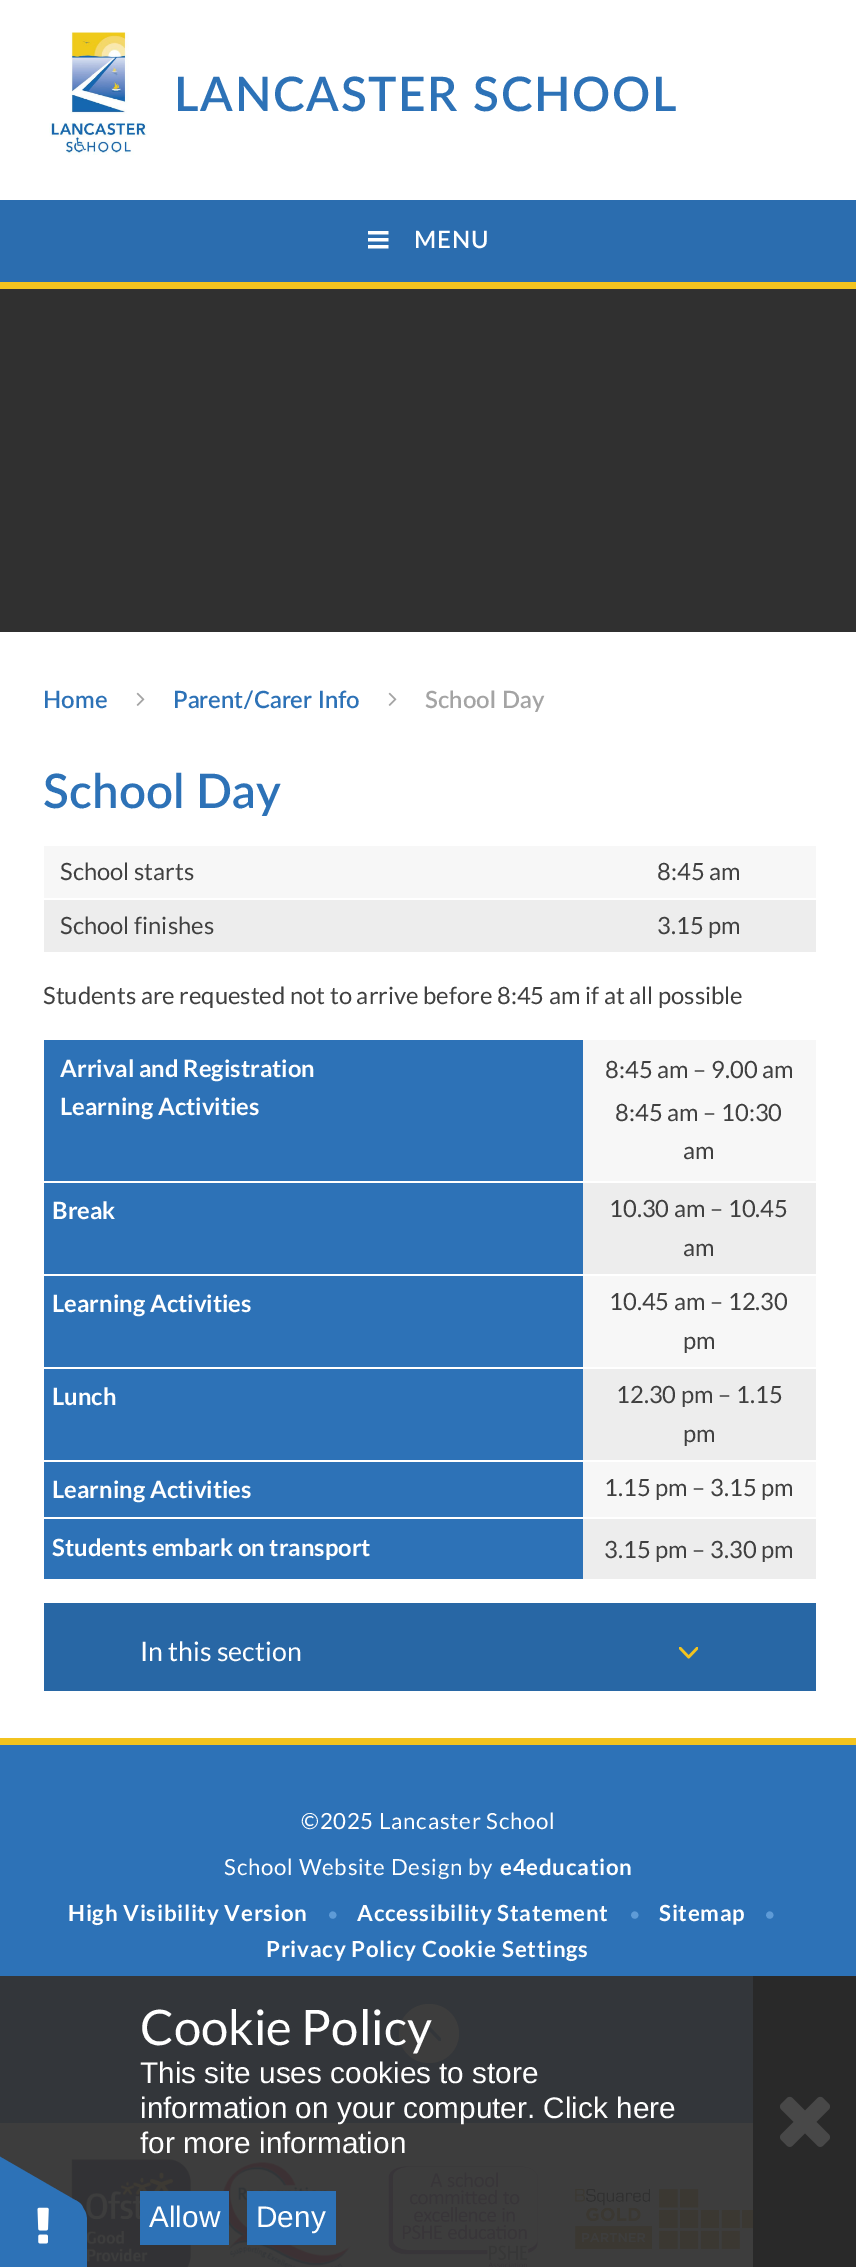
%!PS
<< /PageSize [856 2267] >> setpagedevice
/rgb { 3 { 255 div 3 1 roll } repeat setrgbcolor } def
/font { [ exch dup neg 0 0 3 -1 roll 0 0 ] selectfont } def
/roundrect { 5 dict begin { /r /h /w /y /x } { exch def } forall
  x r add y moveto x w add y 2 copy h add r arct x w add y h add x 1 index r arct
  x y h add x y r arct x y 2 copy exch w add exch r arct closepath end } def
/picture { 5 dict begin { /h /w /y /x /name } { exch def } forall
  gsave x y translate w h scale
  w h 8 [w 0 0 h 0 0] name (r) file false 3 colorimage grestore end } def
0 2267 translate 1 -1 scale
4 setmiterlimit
45 114 183 rgb
0 0 856 2267 rectfill
51 54 58 rgb
0 1976 753 147 rectfill
255 255 255 rgb
0 0 856 200 rectfill
(img/1.rgb) 49 32 98 123 picture
242 195 31 rgb
0 282 856 7 rectfill
43 109 175 rgb
0 200 856 82 rectfill
(img/2.rgb) 368 231 21 18 picture
48 48 48 rgb
0 289 856 343 rectfill
255 255 255 rgb
0 632 856 1106 rectfill
(img/3.rgb) 136 692 9 14 picture
(img/3.rgb) 388 692 9 14 picture
[
  [44 846 772 52 247 247 247]
  [44 900 772 52 237 237 237]
  [583 1040 233 141 247 247 247]
  [44 1040 539 141 45 114 183]
  [583 1183 233 91 237 237 237]
  [44 1183 539 91 45 114 183]
  [583 1276 233 91 247 247 247]
  [44 1276 539 91 45 114 183]
  [583 1369 233 91 237 237 237]
  [44 1369 539 91 45 114 183]
  [583 1462 233 55 247 247 247]
  [44 1462 539 55 45 114 183]
  [583 1519 233 60 237 237 237]
  [44 1519 539 60 45 114 183]
  [44 1603 772 88 40 103 165]
] { aload pop rgb rectfill } forall
(img/4.rgb) 679 1647 19 12 picture
242 195 31 rgb
0 1738 856 7 rectfill
61 61 61 rgb
399 2004 60 59 29.5 roundrect fill
(img/5.rgb) 417 2027 24 14 picture
0 2123 753 144 rectfill
(img/6.rgb) 71 2159 120 108 picture
(img/7.rgb) 222 2162 129 105 picture
(img/8.rgb) 388 2165 150 102 picture
(img/9.rgb) 575 2188 178 61 picture
45 114 183 rgb
87 2221 moveto 87 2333 lineto 87 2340 84 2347 80 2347 curveto -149 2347 lineto -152 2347 -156 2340 -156 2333 curveto -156 2221 lineto -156 2213 -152 2207 -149 2207 curveto 80 2207 lineto 84 2207 87 2213 87 2221 curveto closepath fill
-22 2144 moveto 75 2200 lineto 82 2203 85 2209 83 2213 curveto -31 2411 lineto -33 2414 -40 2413 -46 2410 curveto -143 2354 lineto -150 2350 -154 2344 -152 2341 curveto -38 2143 lineto -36 2139 -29 2140 -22 2144 curveto closepath fill
(img/10.rgb) 37 2207 12 37 picture
[
  [140 2191 89 54 45 114 183]
  [247 2191 89 54 45 114 183]
  [753 1976 103 291 41 41 41]
] { aload pop rgb rectfill } forall
(img/11.rgb) 780 2096 50 51 picture
/Lato-SemiBold 47.6 font
45 114 183 rgb
174 111 moveto 1.7 0 (LANCASTER SCHOOL) ashow
/Lato-SemiBold 23.8 font
255 255 255 rgb
414 248 moveto 1 0 (MENU) ashow
45 114 183 rgb
43 708 moveto (Home) show
173 708 moveto (Parent/Carer Info) show
164 164 164 rgb
425 708 moveto (School Day) show
/Lato-SemiBold 47.6 font
45 114 183 rgb
43 808 moveto (School Day) show
/Lato-Regular 23.8 font
64 64 64 rgb
[
  [(School starts) 60 880]
  [(8:45 am) 657 880]
  [(School finishes) 60 934]
  [(3.15 pm) 657 934]
  [(Students are requested not to arrive before 8:45 am if at all possible) 43 1004]
] { aload pop moveto show } forall
/Lato-Bold 23.8 font
255 255 255 rgb
60 1077 moveto (Arrival and Registration) show
60 1115 moveto (Learning Activities) show
/Lato-Regular 23.8 font
64 64 64 rgb
[
  [(8:45 am – 9.00 am) 605 1078]
  [(8:45 am – 10:30) 615 1121]
  [(am) 683 1159]
] { aload pop moveto show } forall
/Lato-Bold 23.8 font
255 255 255 rgb
52 1219 moveto (Break) show
/Lato-Regular 23.8 font
64 64 64 rgb
609 1217 moveto (10.30 am – 10.45) show
683 1256 moveto (am) show
/Lato-Bold 23.8 font
255 255 255 rgb
52 1312 moveto (Learning Activities) show
/Lato-Regular 23.8 font
64 64 64 rgb
609 1310 moveto (10.45 am – 12.30) show
683 1349 moveto (pm) show
/Lato-Bold 23.8 font
255 255 255 rgb
52 1405 moveto (Lunch) show
/Lato-Regular 23.8 font
64 64 64 rgb
616 1403 moveto (12.30 pm – 1.15) show
683 1442 moveto (pm) show
/Lato-Bold 23.8 font
255 255 255 rgb
52 1498 moveto (Learning Activities) show
/Lato-Regular 23.8 font
64 64 64 rgb
604 1496 moveto (1.15 pm – 3.15 pm) show
/Lato-Bold 23.8 font
255 255 255 rgb
52 1556 moveto (Students embark on transport) show
/Lato-Regular 23.8 font
64 64 64 rgb
604 1558 moveto (3.15 pm – 3.30 pm) show
/Lato-Regular 26.75 font
255 255 255 rgb
140 1661 moveto (In this section) show
/Lato-Regular 22.25 font
301 1829 moveto 0.75 0 (©2025 Lancaster School) ashow
224 1875 moveto 0.75 0 (School Website Design by) ashow
/Lato-Bold 22.25 font
500 1875 moveto 0.75 0 (e4education) ashow
68 1921 moveto 0.75 0 (High Visibility Version) ashow
/Lato-Regular 20 font
94 155 215 rgb
327 1921 moveto 0.75 0 (•) ashow
/Lato-Bold 22.25 font
255 255 255 rgb
357 1921 moveto 0.75 0 (Accessibility Statement) ashow
/Lato-Regular 20 font
94 155 215 rgb
629 1921 moveto 0.75 0 (•) ashow
/Lato-Bold 22.25 font
255 255 255 rgb
659 1921 moveto 0.75 0 (Sitemap) ashow
/Lato-Regular 20 font
94 155 215 rgb
764 1921 moveto 0.75 0 (•) ashow
/Lato-Bold 22.25 font
255 255 255 rgb
266 1957 moveto 0.75 0 (Privacy Policy Cookie Settings) ashow
/Lato-Regular 49 font
140 2045 moveto (Cookie Policy) show
/LiberationSans-Regular 29.75 font
[
  [(This site uses cookies to store) 140 2083]
  [(information on your computer. Click here) 140 2118]
  [(for more information) 140 2153]
  [(Allow) 149 2227]
  [(Deny) 256 2227]
] { aload pop moveto show } forall
showpage
